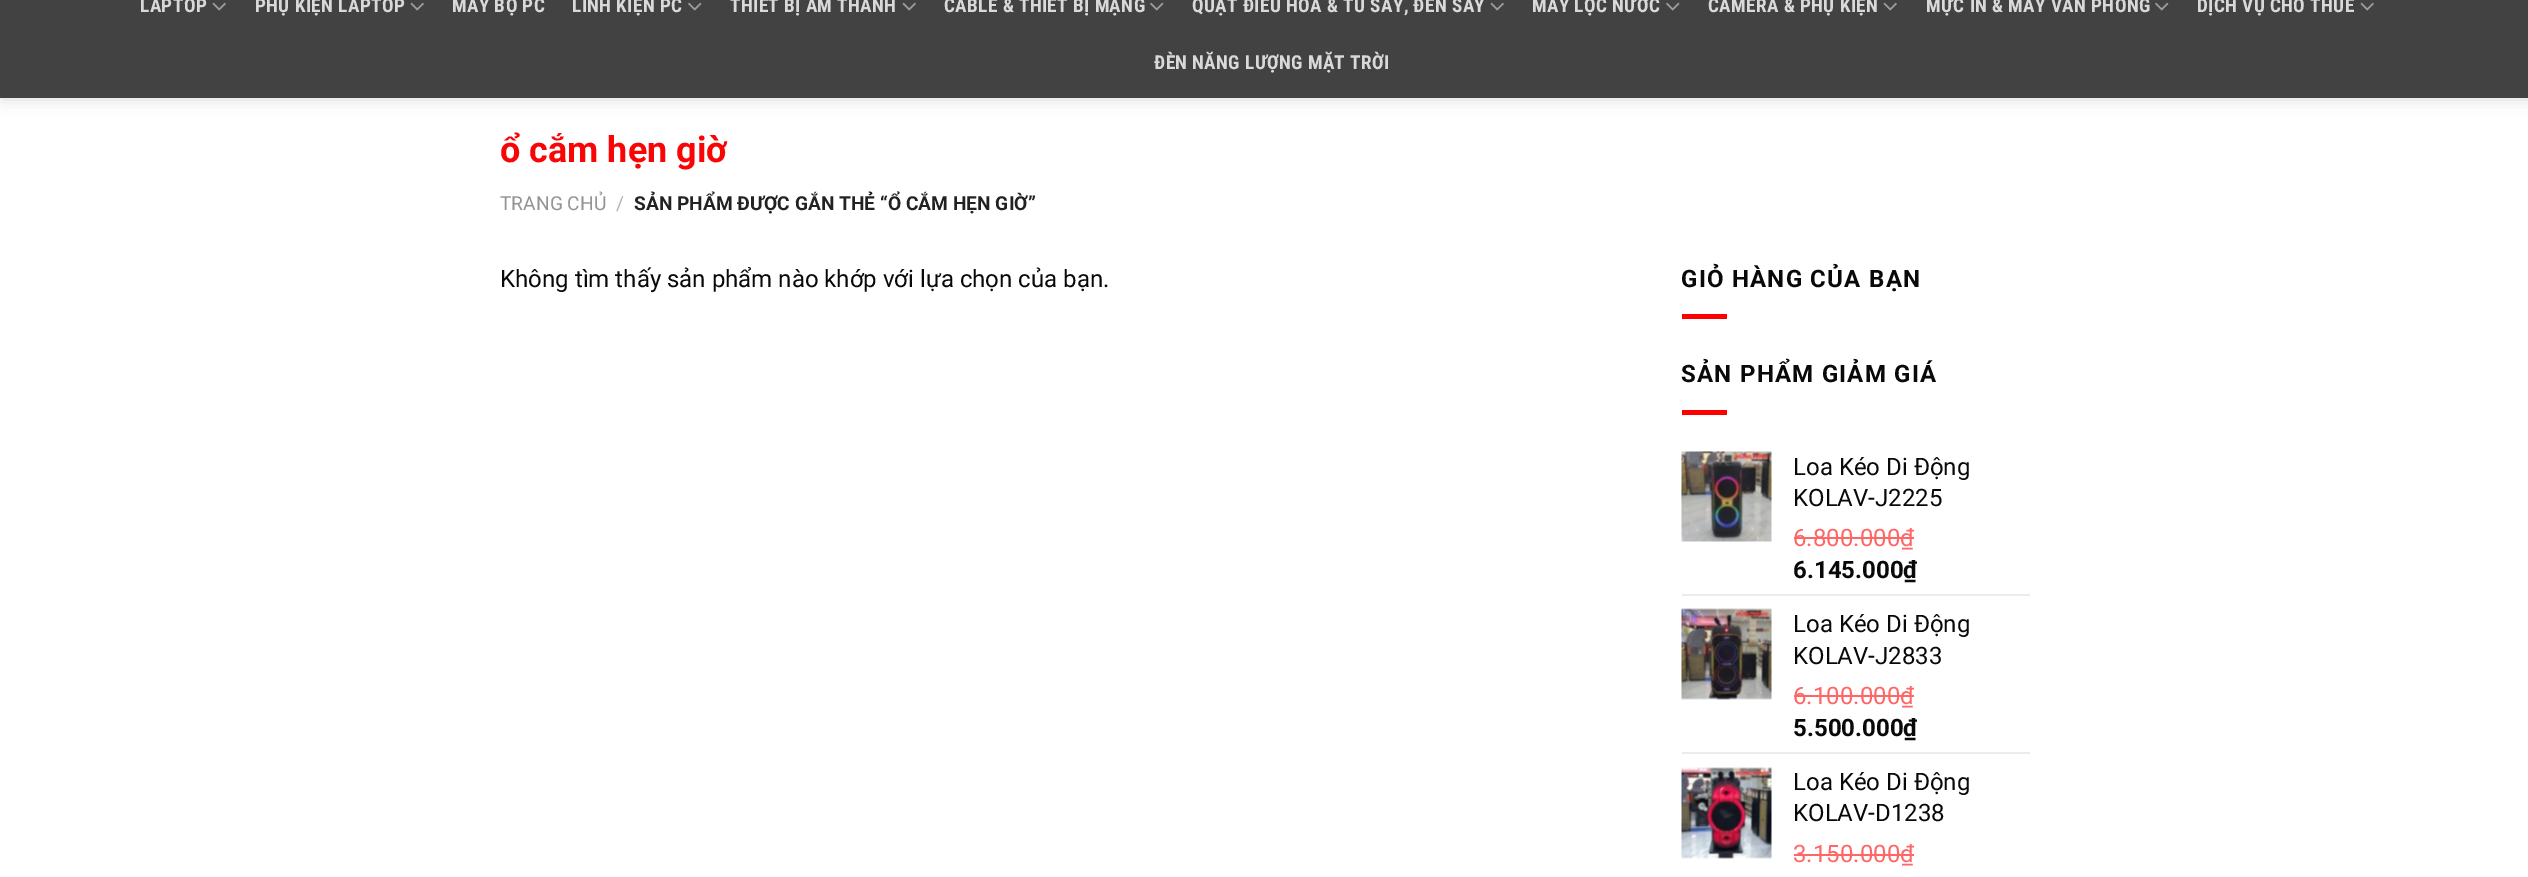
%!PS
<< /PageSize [2528 877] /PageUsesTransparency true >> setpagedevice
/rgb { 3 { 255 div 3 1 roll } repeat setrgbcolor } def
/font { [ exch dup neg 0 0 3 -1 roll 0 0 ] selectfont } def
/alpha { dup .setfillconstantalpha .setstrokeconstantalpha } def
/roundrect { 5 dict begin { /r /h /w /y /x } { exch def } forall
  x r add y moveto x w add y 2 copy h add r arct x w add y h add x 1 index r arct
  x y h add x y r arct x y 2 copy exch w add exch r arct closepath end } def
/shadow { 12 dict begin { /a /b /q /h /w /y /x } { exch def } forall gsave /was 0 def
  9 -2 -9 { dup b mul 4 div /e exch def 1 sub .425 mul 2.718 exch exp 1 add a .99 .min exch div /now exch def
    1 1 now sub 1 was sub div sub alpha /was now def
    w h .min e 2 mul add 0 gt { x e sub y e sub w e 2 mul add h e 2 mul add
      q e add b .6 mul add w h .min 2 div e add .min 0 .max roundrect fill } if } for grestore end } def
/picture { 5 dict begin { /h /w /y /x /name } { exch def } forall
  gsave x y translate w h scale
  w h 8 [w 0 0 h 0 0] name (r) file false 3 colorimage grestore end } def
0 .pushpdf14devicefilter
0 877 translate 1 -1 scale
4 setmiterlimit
255 255 255 rgb
0 0 2528 877 rectfill
0 0 0 rgb
2 -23 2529 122 0 7.5 0.15 shadow
66 66 66 rgb
0 0 2528 98 rectfill
(img/1.rgb) 212 2 14 9 picture
(img/1.rgb) 410 2 14 9 picture
(img/2.rgb) 688 2 14 9 picture
(img/1.rgb) 902 2 14 9 picture
(img/2.rgb) 1150 2 14 9 picture
(img/1.rgb) 1490 2 14 9 picture
(img/2.rgb) 1666 2 14 9 picture
(img/1.rgb) 1883 2 14 9 picture
(img/2.rgb) 2155 2 14 9 picture
(img/1.rgb) 2360 2 14 9 picture
255 0 0 rgb
1682 314 45 5 rectfill
1682 410 45 5 rectfill
(img/3.rgb) 1681 451 91 91 picture
255 102 102 rgb
1794 537 120 2 rectfill
236 236 236 rgb
1682 594 348 2 rectfill
(img/4.rgb) 1681 608 91 92 picture
255 102 102 rgb
1794 695 120 2 rectfill
236 236 236 rgb
1682 752 348 2 rectfill
(img/5.rgb) 1681 767 91 92 picture
255 102 102 rgb
1794 854 120 2 rectfill
/RobotoCondensed-Bold 19.2 font
217 217 217 rgb
140 12 moveto 0.4 0 (LAPTOP) ashow
255 12 moveto 0.4 0 (PHỤ KIỆN LAPTOP) ashow
452 12 moveto 0.4 0 (MÁY BỘ PC) ashow
572 12 moveto 0.4 0 (LINH KIỆN PC) ashow
730 12 moveto 0.4 0 (THIẾT BỊ ÂM THANH) ashow
944 12 moveto 0.4 0 (CABLE & THIẾT BỊ MẠNG) ashow
1192 12 moveto 0.4 0 (QUẠT ĐIỀU HÒA & TỦ SẤY, ĐÈN SẤY) ashow
1532 12 moveto 0.4 0 (MÁY LỌC NƯỚC) ashow
1708 12 moveto 0.4 0 (CAMERA & PHỤ KIỆN) ashow
1926 12 moveto 0.4 0 (MỰC IN & MÁY VĂN PHÒNG) ashow
2197 12 moveto 0.4 0 (DỊCH VỤ CHO THUÊ) ashow
1154 69 moveto 0.4 0 (ĐÈN NĂNG LƯỢNG MẶT TRỜI) ashow
/Roboto-Bold 36 font
249 5 5 rgb
500 162 moveto (ổ cắm hẹn giờ) show
/Roboto-Regular 19.2 font
148 148 148 rgb
500 210 moveto (TRANG CHỦ) show
178 178 178 rgb
616 210 moveto (/) show
/Roboto-Bold 19.2 font
34 34 34 rgb
634 210 moveto (SẢN PHẨM ĐƯỢC GẮN THẺ “Ổ CẮM HẸN GIỜ”) show
/Roboto-Regular 24 font
10 9 9 rgb
500 287 moveto (Không tìm thấy sản phẩm nào khớp với lựa chọn của bạn.) show
/Roboto-Bold 24 font
1681 287 moveto 1.25 0 (GIỎ HÀNG CỦA BẠN) ashow
1681 382 moveto 1.25 0 (SẢN PHẨM GIẢM GIÁ) ashow
/Roboto-Regular 24 font
1793 475 moveto (Loa Kéo Di Động) show
1793 506 moveto (KOLAV-J2225) show
255 102 102 rgb
1793 546 moveto (6.800.000₫) show
/Roboto-Bold 24 font
10 9 9 rgb
1793 578 moveto (6.145.000₫) show
/Roboto-Regular 24 font
1793 632 moveto (Loa Kéo Di Động) show
1793 664 moveto (KOLAV-J2833) show
255 102 102 rgb
1793 704 moveto (6.100.000₫) show
/Roboto-Bold 24 font
10 9 9 rgb
1793 736 moveto (5.500.000₫) show
/Roboto-Regular 24 font
1793 790 moveto (Loa Kéo Di Động) show
1793 821 moveto (KOLAV-D1238) show
255 102 102 rgb
1793 862 moveto (3.150.000₫) show
.poppdf14devicefilter showpage
